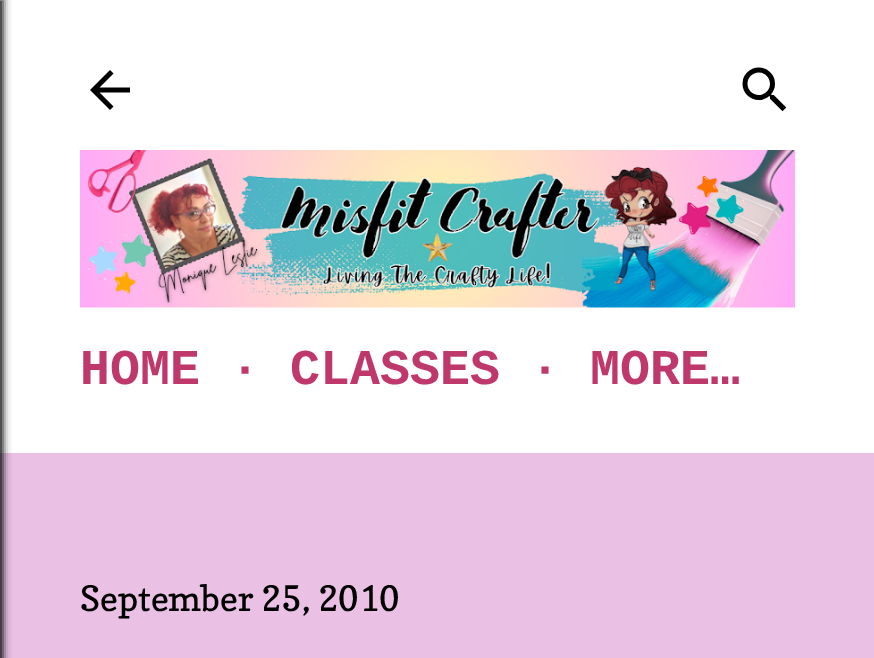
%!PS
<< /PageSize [874 658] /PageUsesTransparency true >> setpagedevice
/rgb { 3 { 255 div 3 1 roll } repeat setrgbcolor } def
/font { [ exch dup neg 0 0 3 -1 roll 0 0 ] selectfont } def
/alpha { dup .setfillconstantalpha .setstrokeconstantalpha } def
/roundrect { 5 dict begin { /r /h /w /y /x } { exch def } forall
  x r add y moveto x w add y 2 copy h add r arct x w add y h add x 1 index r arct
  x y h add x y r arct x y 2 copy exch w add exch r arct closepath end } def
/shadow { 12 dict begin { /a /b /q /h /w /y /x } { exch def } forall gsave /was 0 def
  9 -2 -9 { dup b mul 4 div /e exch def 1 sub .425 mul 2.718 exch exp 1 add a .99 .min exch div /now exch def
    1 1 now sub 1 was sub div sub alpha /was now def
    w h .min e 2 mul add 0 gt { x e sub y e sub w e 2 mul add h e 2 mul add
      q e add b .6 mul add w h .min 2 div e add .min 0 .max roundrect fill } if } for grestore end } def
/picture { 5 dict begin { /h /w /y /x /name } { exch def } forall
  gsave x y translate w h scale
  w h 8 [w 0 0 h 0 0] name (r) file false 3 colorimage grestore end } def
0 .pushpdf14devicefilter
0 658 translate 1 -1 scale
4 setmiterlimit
234 192 229 rgb
0 0 874 658 rectfill
255 255 255 rgb
0 0 874 453 rectfill
0 0 0 rgb
-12 0 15 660 0 4 1 shadow
(img/1.rgb) 90 70 40 40 picture
(img/2.rgb) 742 67 45 45 picture
(img/3.rgb) 80 150 715 158 picture
/LiberationMono-Bold 50 font
191 56 108 rgb
80 384 moveto (HOME · CLASSES · MORE…) show
/Copse-Regular 35 font
0 0 0 rgb
80 611 moveto (September 25, 2010) show
.poppdf14devicefilter showpage
